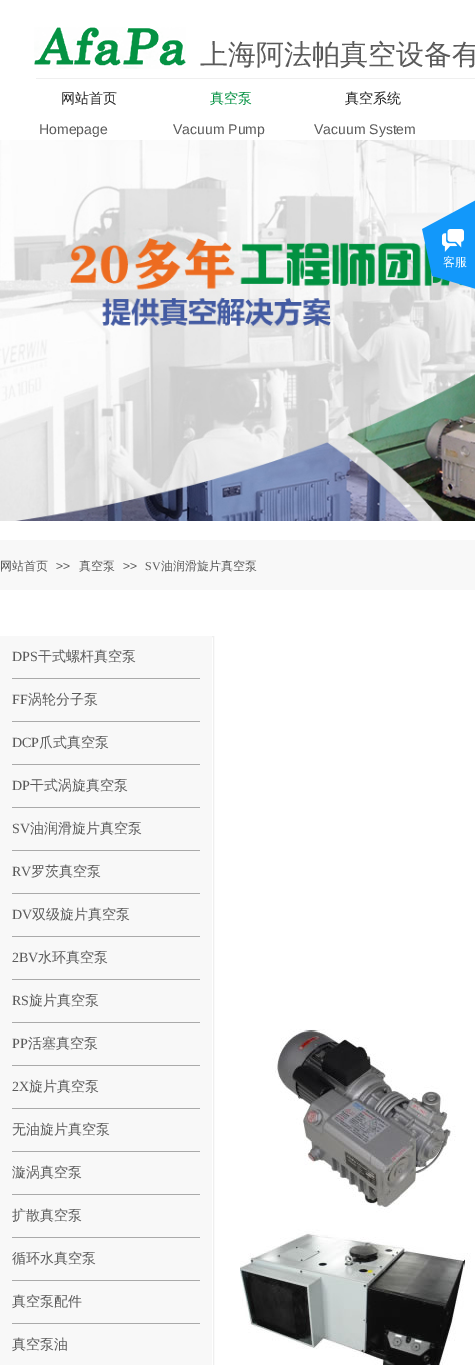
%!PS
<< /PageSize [475 1365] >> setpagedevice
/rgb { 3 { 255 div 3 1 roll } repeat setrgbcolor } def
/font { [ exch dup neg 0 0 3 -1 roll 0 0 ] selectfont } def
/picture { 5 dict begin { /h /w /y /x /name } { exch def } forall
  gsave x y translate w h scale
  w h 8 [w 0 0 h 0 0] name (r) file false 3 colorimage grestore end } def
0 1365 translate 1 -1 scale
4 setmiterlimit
255 255 255 rgb
0 0 475 1365 rectfill
(img/1.rgb) 34 27 152 42 picture
239 239 239 rgb
36 78 439 1 rectfill
(img/2.rgb) 0 140 475 381 picture
248 248 248 rgb
0 540 475 50 rectfill
239 239 239 rgb
0.5 636.5 213 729 rectstroke
[
  [0 636 212 729 248 248 248]
  [12 678 188 1 170 170 170]
  [12 721 188 1 170 170 170]
  [12 764 188 1 170 170 170]
  [12 807 188 1 170 170 170]
  [12 850 188 1 170 170 170]
  [12 893 188 1 170 170 170]
  [12 936 188 1 170 170 170]
  [12 979 188 1 170 170 170]
  [12 1022 188 1 170 170 170]
  [12 1065 188 1 170 170 170]
  [12 1108 188 1 170 170 170]
  [12 1151 188 1 170 170 170]
  [12 1194 188 1 170 170 170]
  [12 1237 188 1 170 170 170]
  [12 1280 188 1 170 170 170]
  [12 1323 188 1 170 170 170]
] { aload pop rgb rectfill } forall
(img/3.rgb) 240 1029 231 336 picture
(img/4.rgb) 422 200 53 89 picture
/WenQuanYiZenHei-Medium 28 font
90 90 90 rgb
200 64 moveto (上海阿法帕真空设备有) show
/WenQuanYiZenHei-Medium 14 font
34 34 34 rgb
61 103 moveto (网站首页) show
2 145 65 rgb
210 103 moveto (真空泵) show
34 34 34 rgb
345 103 moveto (真空系统) show
/LiberationSans-Regular 14 font
90 90 90 rgb
[
  [(Homepage) 39 134]
  [(Vacuum Pump) 173 134]
  [(Vacuum System) 314 134]
] { aload pop moveto show } forall
/WenQuanYiZenHei-Medium 12 font
0 570 moveto (网站首页) show
/LiberationSans-Regular 12 font
56 570 moveto (>>) show
/WenQuanYiZenHei-Medium 12 font
79 570 moveto (真空泵) show
/LiberationSans-Regular 12 font
123 570 moveto (>>) show
/LiberationSerif-Regular 12 font
145 570 moveto (SV) show
/WenQuanYiZenHei-Medium 12 font
161 570 moveto (油润滑旋片真空泵) show
/LiberationSerif-Regular 14 font
12 661 moveto (DPS) show
/WenQuanYiZenHei-Medium 14 font
38 661 moveto (干式螺杆真空泵) show
/LiberationSerif-Regular 14 font
12 704 moveto (FF) show
/WenQuanYiZenHei-Medium 14 font
28 704 moveto (涡轮分子泵) show
/LiberationSerif-Regular 14 font
12 747 moveto (DCP) show
/WenQuanYiZenHei-Medium 14 font
39 747 moveto (爪式真空泵) show
/LiberationSerif-Regular 14 font
12 790 moveto (DP) show
/WenQuanYiZenHei-Medium 14 font
30 790 moveto (干式涡旋真空泵) show
/LiberationSerif-Regular 14 font
12 833 moveto (SV) show
/WenQuanYiZenHei-Medium 14 font
30 833 moveto (油润滑旋片真空泵) show
/LiberationSerif-Regular 14 font
12 876 moveto (RV) show
/WenQuanYiZenHei-Medium 14 font
31 876 moveto (罗茨真空泵) show
/LiberationSerif-Regular 14 font
12 919 moveto (DV) show
/WenQuanYiZenHei-Medium 14 font
32 919 moveto (双级旋片真空泵) show
/LiberationSerif-Regular 14 font
12 962 moveto (2BV) show
/WenQuanYiZenHei-Medium 14 font
38 962 moveto (水环真空泵) show
/LiberationSerif-Regular 14 font
12 1005 moveto (RS) show
/WenQuanYiZenHei-Medium 14 font
29 1005 moveto (旋片真空泵) show
/LiberationSerif-Regular 14 font
12 1048 moveto (PP) show
/WenQuanYiZenHei-Medium 14 font
28 1048 moveto (活塞真空泵) show
/LiberationSerif-Regular 14 font
12 1091 moveto (2X) show
/WenQuanYiZenHei-Medium 14 font
[
  [(旋片真空泵) 29 1091]
  [(无油旋片真空泵) 12 1134]
  [(漩涡真空泵) 12 1177]
  [(扩散真空泵) 12 1220]
  [(循环水真空泵) 12 1263]
  [(真空泵配件) 12 1306]
  [(真空泵油) 12 1349]
] { aload pop moveto show } forall
/WenQuanYiZenHei-Medium 12 font
255 255 255 rgb
443 266 moveto (客服) show
showpage
